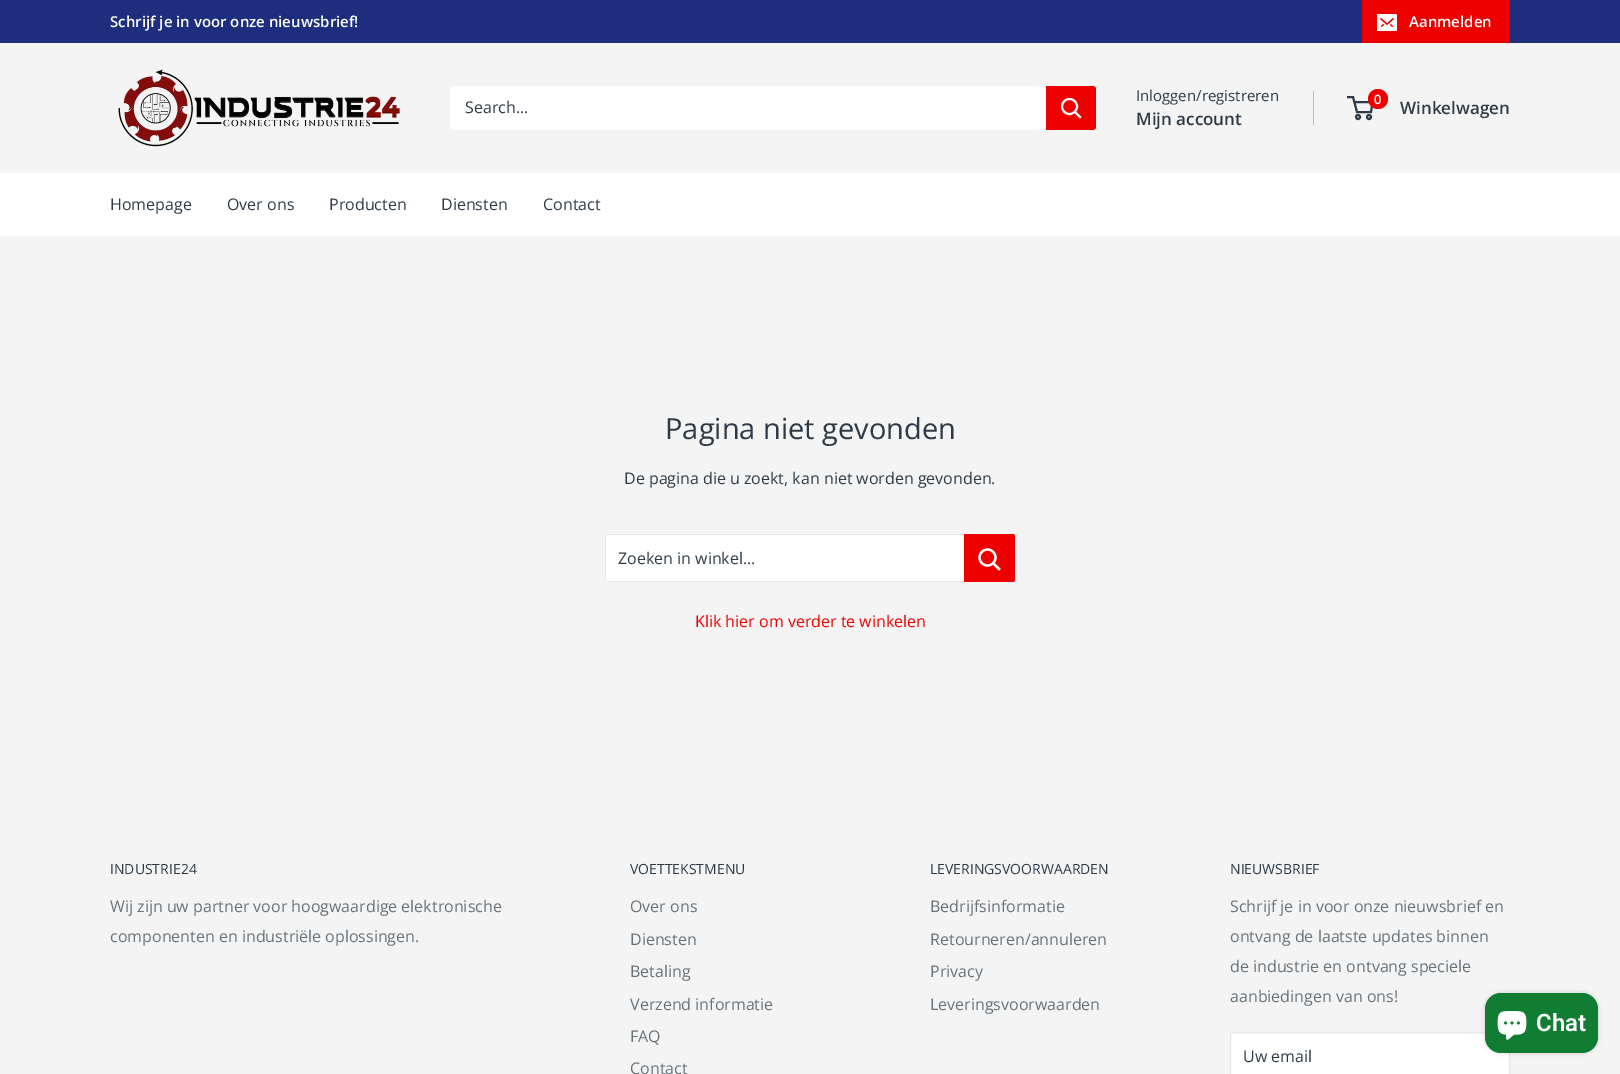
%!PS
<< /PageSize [1620 1074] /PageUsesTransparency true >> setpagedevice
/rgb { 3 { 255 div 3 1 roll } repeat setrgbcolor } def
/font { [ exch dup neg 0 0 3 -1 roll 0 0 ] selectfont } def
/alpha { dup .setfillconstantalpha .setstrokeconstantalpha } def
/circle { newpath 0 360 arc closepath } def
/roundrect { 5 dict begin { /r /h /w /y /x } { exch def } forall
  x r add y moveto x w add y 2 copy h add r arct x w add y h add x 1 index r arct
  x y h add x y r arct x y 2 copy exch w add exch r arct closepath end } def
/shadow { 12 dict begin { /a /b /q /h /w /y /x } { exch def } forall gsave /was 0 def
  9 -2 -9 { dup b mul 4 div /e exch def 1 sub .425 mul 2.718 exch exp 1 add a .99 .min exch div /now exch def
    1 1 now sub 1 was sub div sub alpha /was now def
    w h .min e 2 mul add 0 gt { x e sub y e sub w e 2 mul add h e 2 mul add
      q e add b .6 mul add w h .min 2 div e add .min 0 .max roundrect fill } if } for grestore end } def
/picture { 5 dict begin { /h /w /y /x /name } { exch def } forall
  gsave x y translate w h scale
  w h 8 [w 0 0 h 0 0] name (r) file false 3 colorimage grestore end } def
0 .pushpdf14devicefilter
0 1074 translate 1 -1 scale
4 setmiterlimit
244 244 244 rgb
0 0 1620 1074 rectfill
[
  [0 0 1620 42 30 45 125]
  [0 42 1620 1 35 49 109]
  [1362 0 148 43 238 0 0]
] { aload pop rgb rectfill } forall
(img/1.rgb) 1377 14 20 17 picture
(img/2.rgb) 118 69 282 78 picture
255 255 255 rgb
450 86 646 44 3 roundrect fill
238 0 0 rgb
1046 86 moveto 1093 86 lineto 1094.5 86 1096 87.5 1096 89 curveto 1096 127 lineto 1096 128.5 1094.5 130 1093 130 curveto 1046 130 lineto closepath fill
255 255 255 rgb
2 setlinewidth
2 setlinecap
1080 117 moveto 1075 112 lineto stroke
0 setlinecap
1069.5 106.5 7.5 circle stroke
185 189 192 rgb
1313 91 1 34 rectfill
46 59 71 rgb
1358 117 2 circle stroke
1369 117 2 circle stroke
1354.5 102 moveto 1372.5 102 lineto 1371 112 lineto 1357 112 lineto 1353 97 lineto 1347 97 lineto stroke
238 0 0 rgb
1378 99 10 circle fill
255 255 255 rgb
0 173 1620 63 rectfill
607 534 moveto 964 534 lineto 964 582 lineto 607 582 lineto 606 582 605 581 605 580 curveto 605 536 lineto 605 535 606 534 607 534 curveto closepath fill
252 252 252 rgb
607 536 moveto 964 536 lineto 964 535 lineto 607 535 lineto 606 535 606 536 606 537 curveto 606 536 606 536 607 536 curveto closepath fill
[
  [606 534 358 1 231 231 231]
  [606 581 358 1 231 231 231]
  [605 535 1 46 231 231 231]
] { aload pop rgb rectfill } forall
238 0 0 rgb
964 534 moveto 1013 534 lineto 1014 534 1015 535 1015 536 curveto 1015 580 lineto 1015 581 1014 582 1013 582 curveto 964 582 lineto closepath fill
255 255 255 rgb
2.2 setlinewidth
2 setlinecap
999 569 moveto 993.5 563.5 lineto stroke
0 setlinecap
987.5 557.5 8 circle stroke
1230 1032 280 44 2 roundrect fill
252 252 252 rgb
1232 1034 moveto 1508 1034 lineto 1509 1034 1509 1034 1509 1035 curveto 1509 1034 1509 1033 1508 1033 curveto 1232 1033 lineto 1231 1033 lineto 1231 1035 lineto 1231 1034 1231 1034 1232 1034 curveto closepath fill
231 231 231 rgb
1 setlinewidth
1230.5 1032.5 279 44 1.5 roundrect stroke
0 0 0 rgb
1485 993 113 60 16 2.5 0.15 shadow
16 125 50 rgb
1485 993 113 60 16 roundrect fill
(img/3.rgb) 1497 1011 30 29 picture
/OpenSans-SemiBold 15 font
255 255 255 rgb
110 27 moveto (Schrijf je in voor onze nieuwsbrief!) show
1409 27 moveto (Aanmelden) show
/OpenSans-Regular 16 font
46 59 71 rgb
465 113 moveto (Search...) show
/OpenSans-Regular 15 font
1136 101 moveto (Inloggen/registreren) show
/OpenSans-SemiBold 17 font
1136 125 moveto (Mijn account) show
/OpenSans-SemiBold 13 font
255 255 255 rgb
1374 104 moveto (0) show
/OpenSans-SemiBold 17 font
46 59 71 rgb
1400 114 moveto (Winkelwagen) show
/OpenSans-Regular 16 font
[
  [(Homepage) 110 210]
  [(Over ons) 227 210]
  [(Producten) 329 210]
  [(Diensten) 441 210]
  [(Contact) 543 210]
] { aload pop moveto show } forall
/OpenSans-Regular 29 font
665 439 moveto (Pagina niet gevonden) show
/OpenSans-Regular 16 font
624 484 moveto (De pagina die u zoekt, kan niet worden gevonden.) show
618 564 moveto (Zoeken in winkel...) show
238 0 0 rgb
695 627 moveto (Klik hier om verder te winkelen) show
/OpenSans-Regular 14 font
46 59 71 rgb
110 874 moveto (INDUSTRIE24) show
/OpenSans-Regular 16 font
103 114 121 rgb
110 912 moveto (Wij zijn uw partner voor hoogwaardige elektronische) show
110 942 moveto (componenten en industriële oplossingen.) show
/OpenSans-Regular 14 font
46 59 71 rgb
630 874 moveto (VOETTEKSTMENU) show
/OpenSans-Regular 16 font
103 114 121 rgb
[
  [(Over ons) 630 912]
  [(Diensten) 630 945]
  [(Betaling) 630 977]
  [(Verzend informatie) 630 1010]
  [(FAQ) 630 1042]
  [(Contact) 630 1074]
] { aload pop moveto show } forall
/OpenSans-Regular 14 font
46 59 71 rgb
930 874 moveto (LEVERINGSVOORWAARDEN) show
/OpenSans-Regular 16 font
103 114 121 rgb
[
  [(Bedrijfsinformatie) 930 912]
  [(Retourneren/annuleren) 930 945]
  [(Privacy) 930 977]
  [(Leveringsvoorwaarden) 930 1010]
] { aload pop moveto show } forall
/OpenSans-Regular 14 font
46 59 71 rgb
1230 874 moveto (NIEUWSBRIEF) show
/OpenSans-Regular 16 font
103 114 121 rgb
[
  [(Schrijf je in voor onze nieuwsbrief en) 1230 912]
  [(ontvang de laatste updates binnen) 1230 942]
  [(de industrie en ontvang speciele) 1230 972]
  [(aanbiedingen van ons!) 1230 1002]
] { aload pop moveto show } forall
46 59 71 rgb
1243 1062 moveto (Uw email) show
/Roboto-SemiBold 24 font
255 255 255 rgb
1536 1031 moveto (Chat) show
.poppdf14devicefilter showpage
